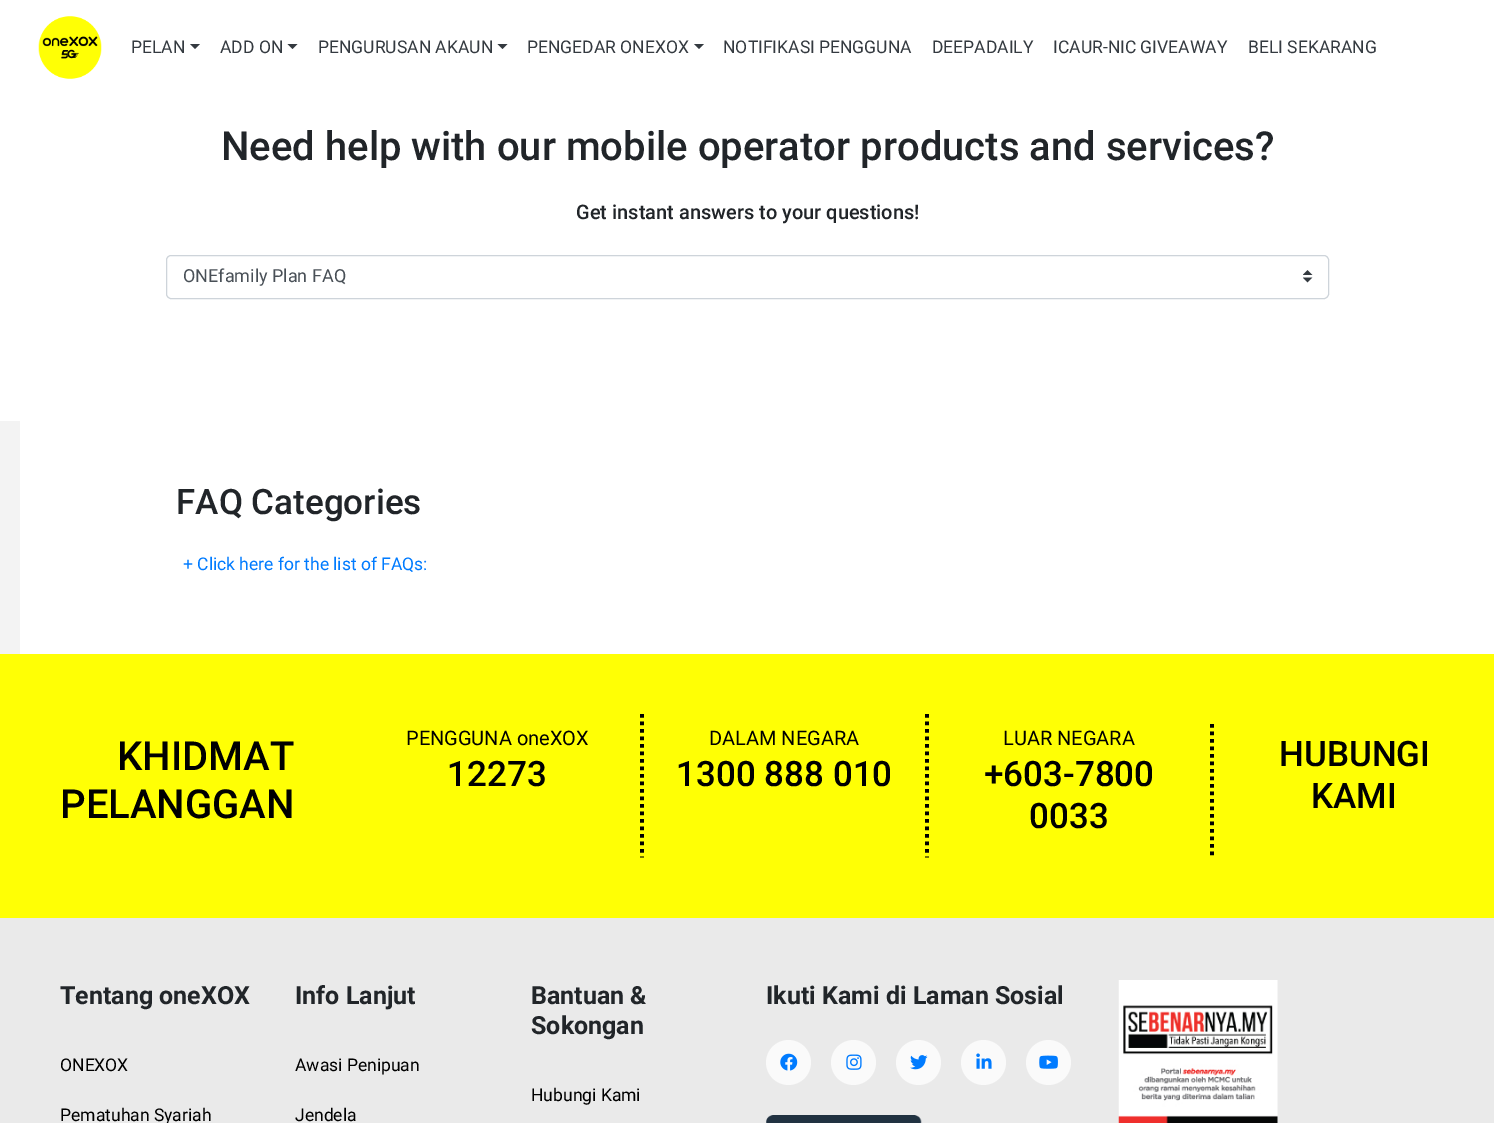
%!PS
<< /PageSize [1494 1123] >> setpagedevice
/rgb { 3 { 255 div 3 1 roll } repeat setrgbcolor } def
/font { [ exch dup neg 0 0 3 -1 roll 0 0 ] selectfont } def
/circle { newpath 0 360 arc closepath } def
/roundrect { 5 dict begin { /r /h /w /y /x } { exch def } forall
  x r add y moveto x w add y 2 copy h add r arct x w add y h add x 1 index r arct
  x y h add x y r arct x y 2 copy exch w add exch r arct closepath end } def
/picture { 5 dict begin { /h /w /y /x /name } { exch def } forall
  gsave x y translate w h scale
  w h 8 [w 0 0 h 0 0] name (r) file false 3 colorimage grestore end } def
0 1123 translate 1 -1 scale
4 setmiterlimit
243 243 243 rgb
0 0 1494 1123 rectfill
255 255 255 rgb
0 0 1494 421 rectfill
(img/1.rgb) 38 16 64 63 picture
52 58 64 rgb
190 44 moveto 200 44 lineto 195 49 lineto closepath fill
287.5 44 moveto 297.5 44 lineto 292.5 49 lineto closepath fill
497.5 44 moveto 507.5 44 lineto 502.5 49 lineto closepath fill
694 44 moveto 704 44 lineto 699 49 lineto closepath fill
(img/2.rgb) 1303 270 10 13 picture
206 212 218 rgb
166.5 255.5 1162 43 4.5 roundrect stroke
255 255 255 rgb
20 421 1474 233 rectfill
255 255 5 rgb
0 654 1494 264 rectfill
0 0 0 rgb
3.8 setlinewidth
[3.75 3.75] 0 setdash
642 714 moveto 642 857.5 lineto stroke
927 714 moveto 927 857.5 lineto stroke
1212 724 moveto 1212 857.5 lineto stroke
234 234 234 rgb
0 918 1494 205 rectfill
250 250 250 rgb
788.5 1062.5 22.5 circle fill
(img/3.rgb) 780 1053 18 18 picture
853.5 1062.5 22.5 circle fill
(img/4.rgb) 846 1054 16 16 picture
918.5 1062.5 22.5 circle fill
(img/5.rgb) 910 1055 18 15 picture
983.5 1062.5 22.5 circle fill
(img/6.rgb) 976 1053 16 16 picture
1048.5 1062.5 22.5 circle fill
(img/7.rgb) 1039 1055 19 14 picture
(img/8.rgb) 766 1115 156 8 picture
(img/9.rgb) 1118 980 160 143 picture
/Roboto-Regular 17.5 font
52 58 64 rgb
[
  [(PELAN) 131 53]
  [(ADD ON) 220 53]
  [(PENGURUSAN AKAUN) 318 53]
  [(PENGEDAR ONEXOX) 527 53]
  [(NOTIFIKASI PENGGUNA) 723 53]
  [(DEEPADAILY) 932 53]
  [(ICAUR-NIC GIVEAWAY) 1053 53]
  [(BELI SEKARANG) 1248 53]
] { aload pop moveto show } forall
/Roboto-Medium 40 font
33 37 41 rgb
221 160 moveto (Need help with our mobile operator products and services?) show
/Roboto-Medium 20 font
576 219 moveto (Get instant answers to your questions!) show
/Roboto-Regular 18 font
73 80 87 rgb
183 282 moveto (ONEfamily Plan FAQ) show
/Roboto-Medium 35 font
33 37 41 rgb
176 514 moveto (FAQ Categories) show
/Roboto-Regular 17.5 font
0 123 255 rgb
183 570 moveto (+ Click here for the list of FAQs:) show
/Roboto-Medium 40 font
0 0 0 rgb
117 770 moveto (KHIDMAT) show
60 818 moveto (PELANGGAN) show
/Roboto-Regular 20 font
406 745 moveto (PENGGUNA oneXOX) show
/Roboto-Medium 35 font
447 786 moveto (12273) show
/Roboto-Regular 20 font
709 745 moveto (DALAM NEGARA) show
/Roboto-Medium 35 font
676 786 moveto (1300 888 010) show
/Roboto-Regular 20 font
1003 745 moveto (LUAR NEGARA) show
/Roboto-Medium 35 font
[
  [(+603-7800) 984 786]
  [(0033) 1029 828]
  [(HUBUNGI) 1279 766]
  [(KAMI) 1311 808]
] { aload pop moveto show } forall
/Roboto-Bold 25 font
33 37 41 rgb
60 1004 moveto (Tentang oneXOX) show
/Roboto-Regular 17.5 font
0 0 0 rgb
60 1071 moveto (ONEXOX) show
60 1121 moveto (Pematuhan Syariah) show
/Roboto-Bold 25 font
33 37 41 rgb
295 1004 moveto (Info Lanjut) show
/Roboto-Regular 17.5 font
0 0 0 rgb
295 1071 moveto (Awasi Penipuan) show
295 1121 moveto (Jendela) show
/Roboto-Bold 25 font
33 37 41 rgb
531 1004 moveto (Bantuan &) show
531 1034 moveto (Sokongan) show
/Roboto-Regular 17.5 font
0 0 0 rgb
531 1101 moveto (Hubungi Kami) show
/Roboto-Bold 25 font
33 37 41 rgb
766 1004 moveto (Ikuti Kami di Laman Sosial) show
showpage
